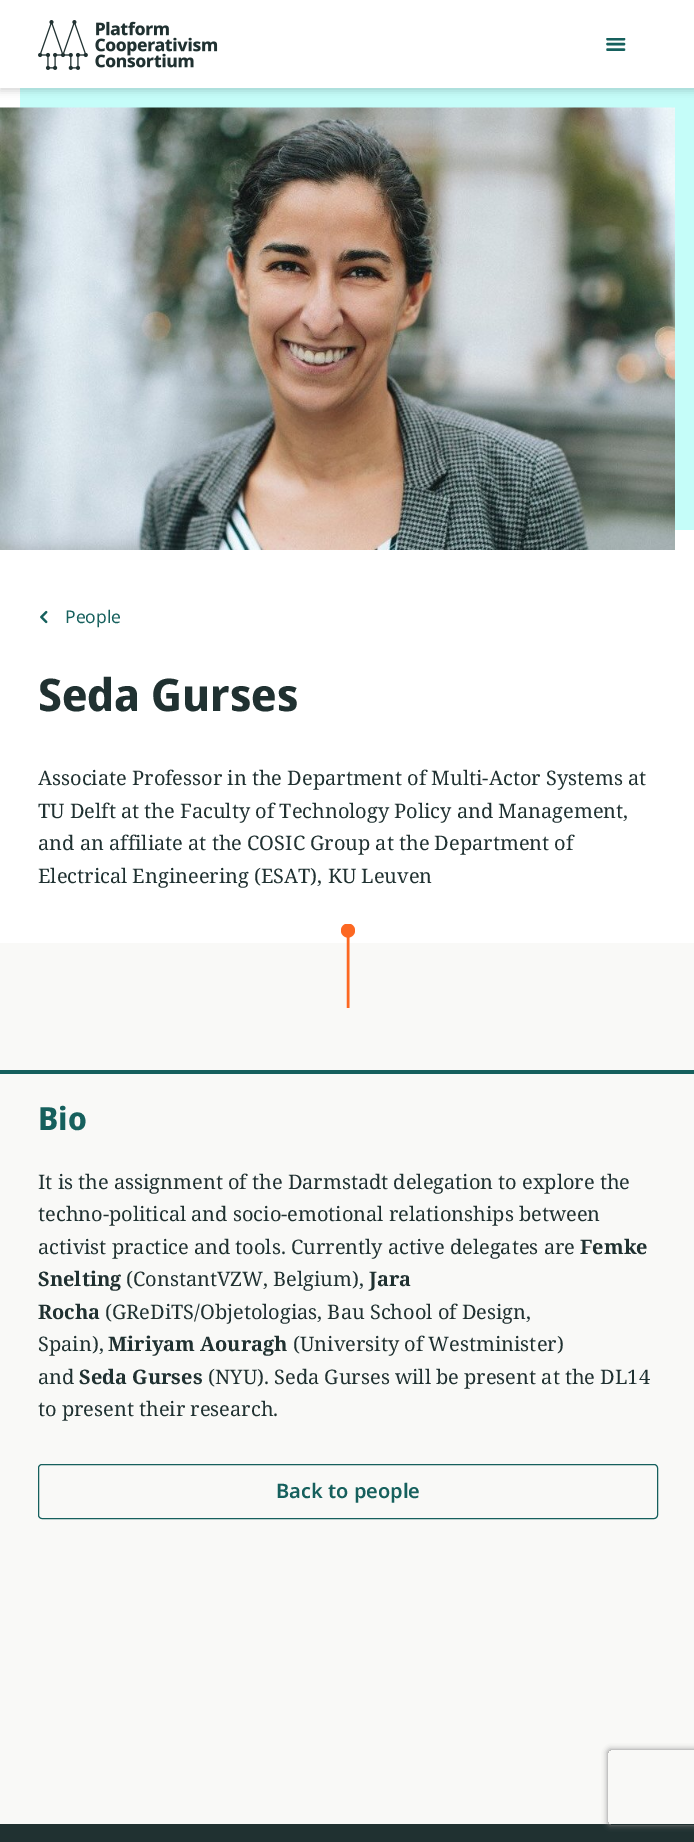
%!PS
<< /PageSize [694 1842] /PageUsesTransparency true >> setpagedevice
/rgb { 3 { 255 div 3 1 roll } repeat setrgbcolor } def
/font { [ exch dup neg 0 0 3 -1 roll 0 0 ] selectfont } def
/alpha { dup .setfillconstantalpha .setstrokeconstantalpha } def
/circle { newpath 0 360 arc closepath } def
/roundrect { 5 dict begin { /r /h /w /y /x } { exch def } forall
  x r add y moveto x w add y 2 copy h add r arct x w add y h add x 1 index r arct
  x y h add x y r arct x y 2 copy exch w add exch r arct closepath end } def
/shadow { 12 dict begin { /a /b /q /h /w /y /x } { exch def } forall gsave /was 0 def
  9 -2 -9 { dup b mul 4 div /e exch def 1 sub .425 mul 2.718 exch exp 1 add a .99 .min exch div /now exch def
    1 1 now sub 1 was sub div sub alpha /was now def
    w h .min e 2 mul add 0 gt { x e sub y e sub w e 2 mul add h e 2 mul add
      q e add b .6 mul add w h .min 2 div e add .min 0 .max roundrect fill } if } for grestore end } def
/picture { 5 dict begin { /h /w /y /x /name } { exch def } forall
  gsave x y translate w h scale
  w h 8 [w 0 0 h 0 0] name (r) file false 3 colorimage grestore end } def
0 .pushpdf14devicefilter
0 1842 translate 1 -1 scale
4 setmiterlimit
255 255 255 rgb
0 0 694 1842 rectfill
197 253 249 rgb
20 88 moveto 20 108 lineto 675 108 lineto 675 530 lineto 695 530 lineto 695 88 lineto closepath fill
0 0 0 rgb
0 4 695 87 0 4 0.16 shadow
255 255 255 rgb
0 0 694 88 rectfill
(img/1.rgb) 38 20 180 50 picture
gsave
606 38 20 15 rectclip
22 96 93 rgb
2.5 setlinewidth
1 setlinecap
607.5 39 moveto 624 39 lineto 607.5 44 moveto 624 44 lineto 607.5 49.5 moveto 624 49.5 lineto stroke
grestore
(img/2.rgb) 0 107 675 443 picture
(img/3.rgb) 40 610 8 14 picture
249 249 247 rgb
0 943 694 881 rectfill
252 104 34 rgb
2.5 setlinewidth
348 929.5 moveto 348 1008 lineto stroke
gsave
341 924 14 84 rectclip
348 930.5 7 circle fill
grestore
22 96 93 rgb
0 1070 694 4 rectfill
1 setlinewidth
38.5 1464.5 619 54 3.5 roundrect stroke
32 49 49 rgb
0 1824 694 18 rectfill
gsave
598 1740 moveto 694 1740 lineto 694 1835 lineto 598 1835 lineto closepath 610.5 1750 moveto 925.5 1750 lineto 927 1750 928 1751 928 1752.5 curveto 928 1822.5 lineto 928 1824 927 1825 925.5 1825 curveto 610.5 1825 lineto 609 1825 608 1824 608 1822.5 curveto 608 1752.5 lineto 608 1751 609 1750 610.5 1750 curveto closepath eoclip newpath
128 128 128 rgb
608 1750 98 75 2.5 3 1 shadow
grestore
/NotoSans-Regular 17.5 font
22 96 93 rgb
65 623 moveto (People) show
/NotoSansDisplay-Bold 45 font
32 49 49 rgb
38 711 moveto (Seda Gurses) show
/NotoSerif-Regular 20 font
[
  [(Associate Professor in the Department of Multi-Actor Systems at) 38 785]
  [(TU Delft at the Faculty of Technology Policy and Management,) 38 818]
  [(and an affiliate at the COSIC Group at the Department of) 38 850]
  [(Electrical Engineering \(ESAT\), KU Leuven) 38 883]
] { aload pop moveto show } forall
/NotoSansDisplay-Bold 32 font
22 96 93 rgb
38 1130 moveto (Bio) show
/NotoSerif-Regular 20 font
32 49 49 rgb
[
  [(It is the assignment of the Darmstadt delegation to explore the) 38 1189]
  [(techno-political and socio-emotional relationships between) 38 1221]
  [(activist practice and tools. Currently active delegates are) 38 1254]
] { aload pop moveto show } forall
/NotoSerif-Bold 20 font
580 1254 moveto (Femke) show
38 1286 moveto (Snelting) show
/NotoSerif-Regular 20 font
126 1286 moveto (\(ConstantVZW, Belgium\),) show
/NotoSerif-Bold 20 font
369 1286 moveto (Jara) show
38 1319 moveto (Rocha) show
/NotoSerif-Regular 20 font
105 1319 moveto (\(GReDiTS/Objetologias, Bau School of Design,) show
38 1351 moveto (Spain\),) show
/NotoSerif-Bold 20 font
108 1351 moveto (Miriyam Aouragh) show
/NotoSerif-Regular 20 font
293 1351 moveto (\(University of Westminister\)) show
38 1384 moveto (and) show
/NotoSerif-Bold 20 font
79 1384 moveto (Seda Gurses) show
/NotoSerif-Regular 20 font
208 1384 moveto (\(NYU\). Seda Gurses will be present at the DL14) show
38 1416 moveto (to present their research.) show
/NotoSans-SemiBold 20 font
22 96 93 rgb
276 1498 moveto (Back to people) show
.poppdf14devicefilter showpage
